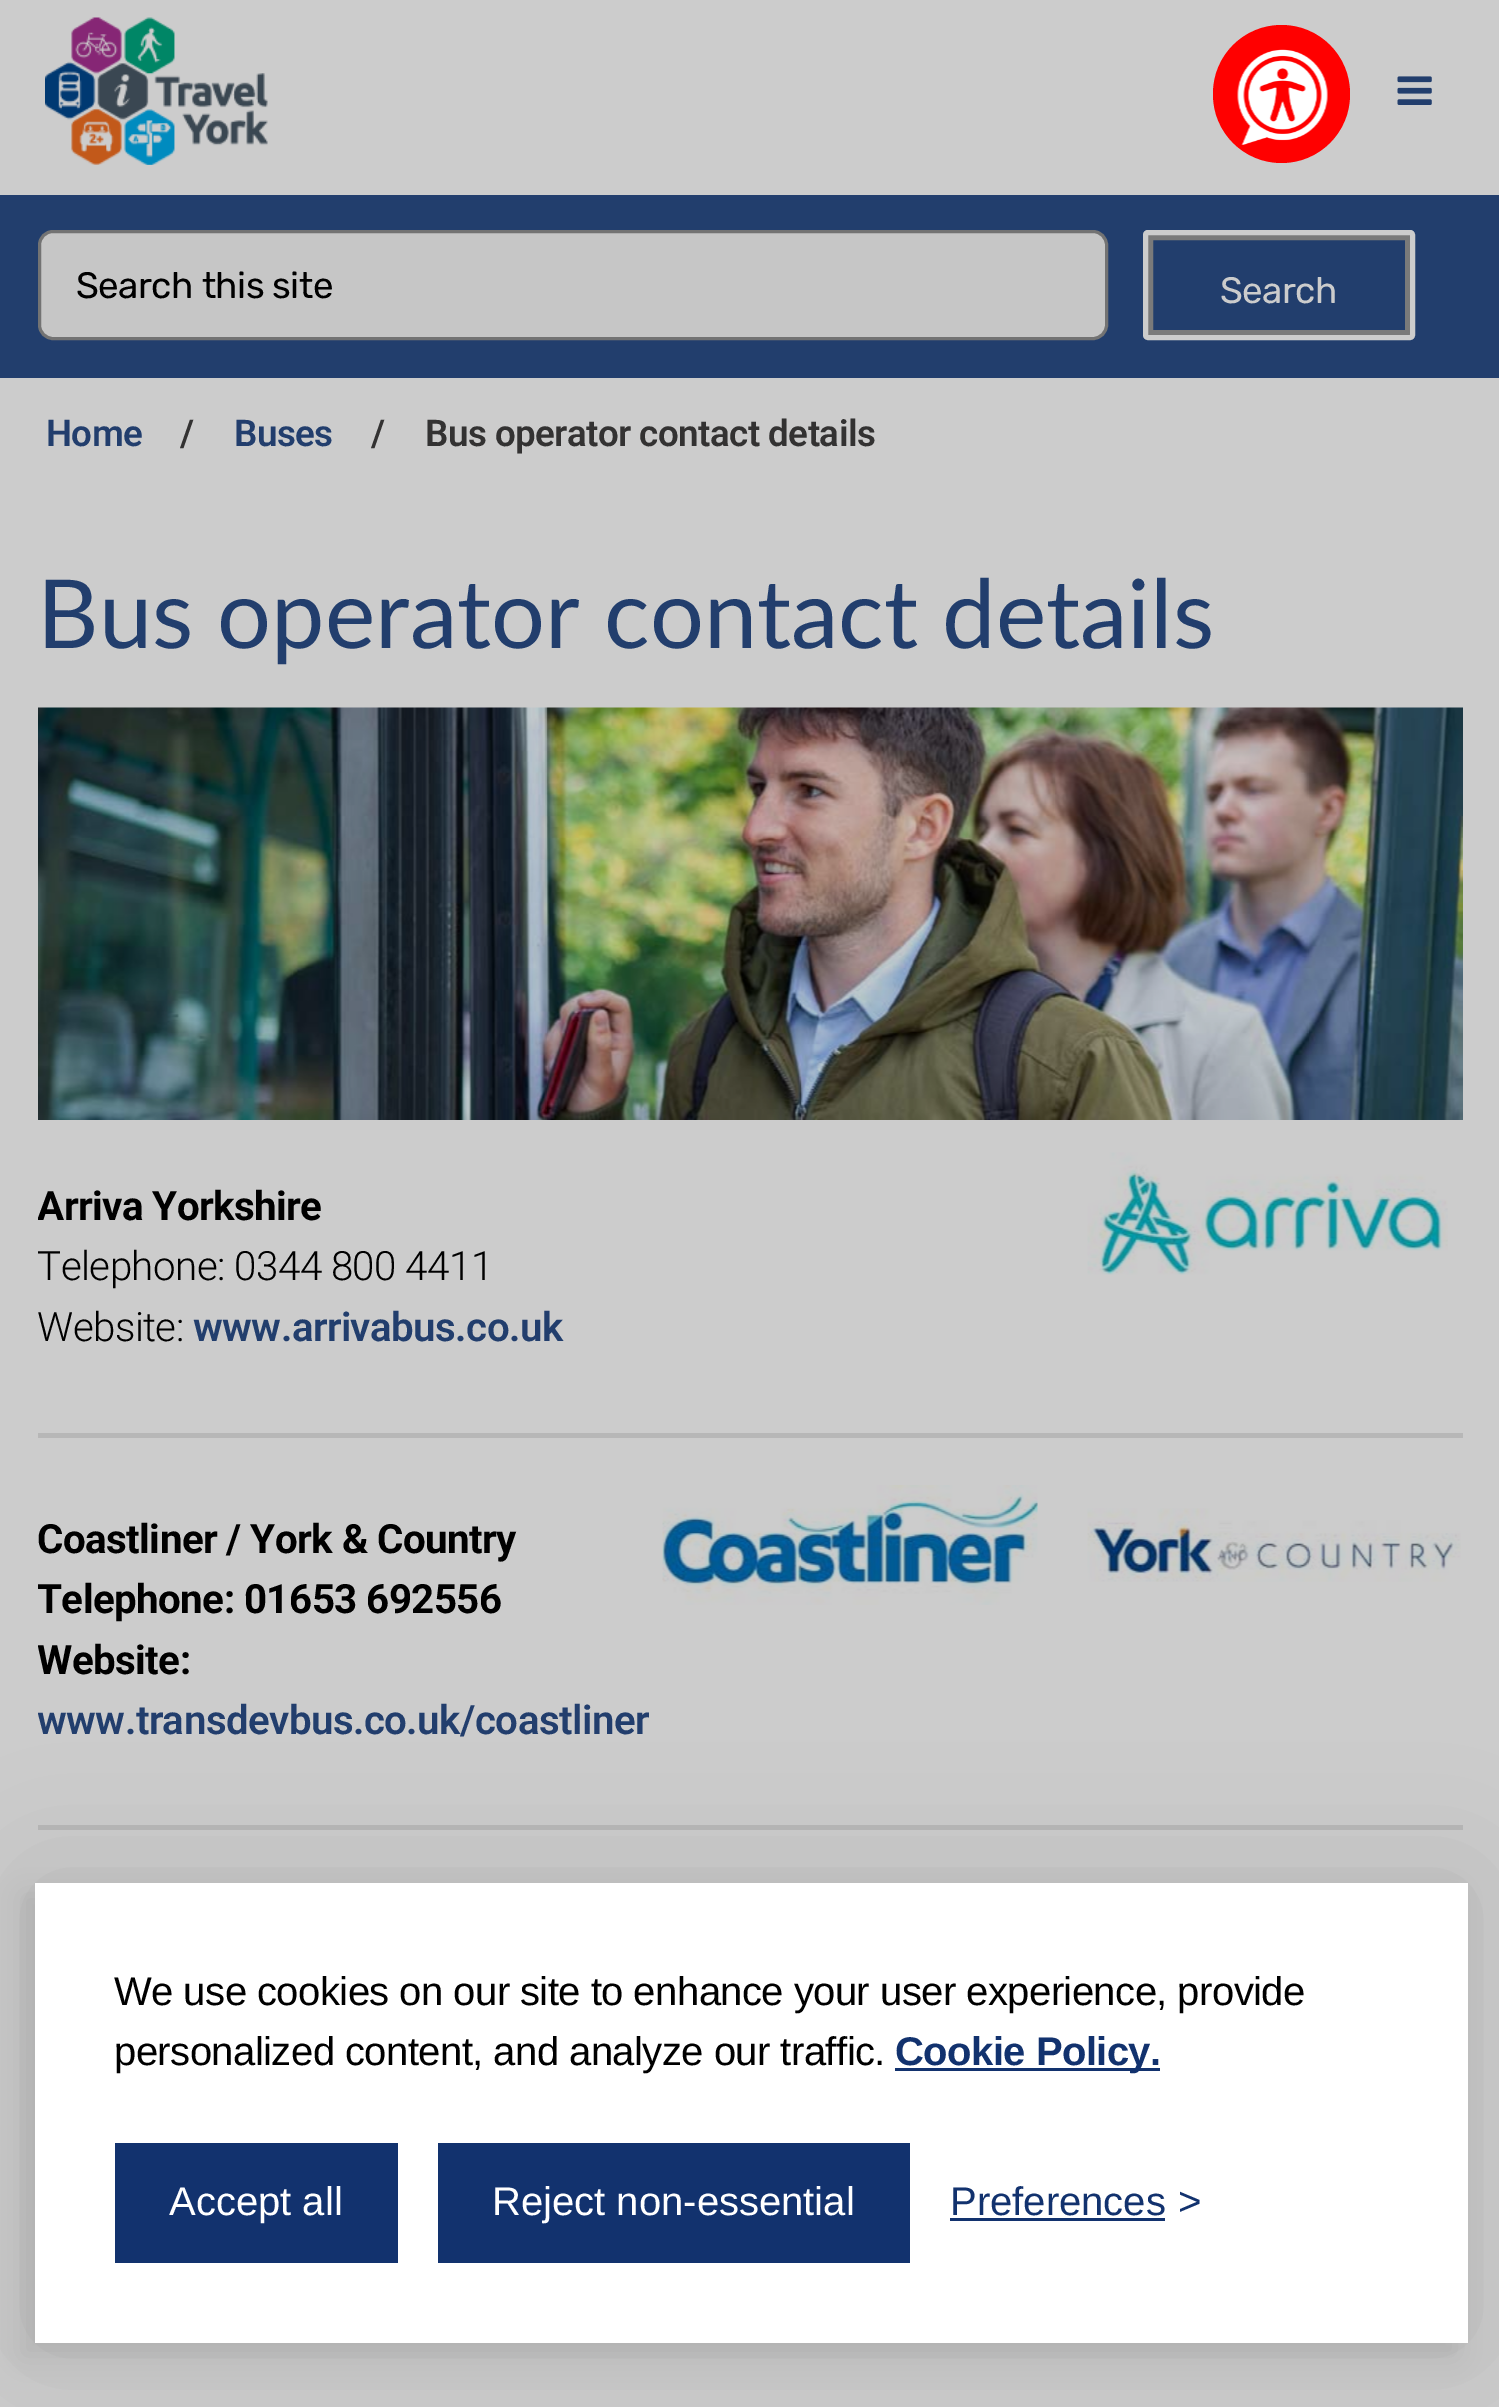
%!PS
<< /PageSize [1499 2407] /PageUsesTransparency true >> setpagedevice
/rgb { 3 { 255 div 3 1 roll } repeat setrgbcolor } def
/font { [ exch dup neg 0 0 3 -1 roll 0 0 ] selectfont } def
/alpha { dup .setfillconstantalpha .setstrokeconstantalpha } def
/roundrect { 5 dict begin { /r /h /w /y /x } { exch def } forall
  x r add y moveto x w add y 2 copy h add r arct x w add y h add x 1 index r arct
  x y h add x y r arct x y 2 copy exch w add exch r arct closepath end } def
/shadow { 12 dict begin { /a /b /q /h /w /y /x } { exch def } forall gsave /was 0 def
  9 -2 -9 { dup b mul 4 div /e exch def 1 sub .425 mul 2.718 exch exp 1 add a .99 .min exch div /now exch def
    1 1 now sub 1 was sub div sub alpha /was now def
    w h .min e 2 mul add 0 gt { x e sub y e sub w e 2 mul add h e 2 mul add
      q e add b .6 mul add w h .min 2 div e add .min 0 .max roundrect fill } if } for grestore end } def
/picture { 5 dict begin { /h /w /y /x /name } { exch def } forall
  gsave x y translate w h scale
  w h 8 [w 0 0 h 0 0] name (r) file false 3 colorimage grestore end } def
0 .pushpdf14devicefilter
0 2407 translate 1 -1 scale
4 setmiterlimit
204 204 204 rgb
0 0 1499 2407 rectfill
255 0 0 rgb
1213 25 137 138 68.5 roundrect fill
(img/1.rgb) 1237 49 91 96 picture
(img/2.rgb) 1397 76 35 29 picture
(img/3.rgb) 45 17 223 148 picture
34 62 109 rgb
0 195 1499 183 rectfill
198 198 198 rgb
39.5 231.5 1067 107 13.5 roundrect gsave fill grestore
115 115 115 rgb
3 setlinewidth
stroke
122 122 122 rgb
5 setlinewidth
1150.5 237.5 257 95 rectstroke
204 204 204 rgb
1145.5 232.5 267 105 2.5 roundrect stroke
(img/4.rgb) 38 707 1425 413 picture
(img/5.rgb) 1087 1152 361 123 picture
183 183 183 rgb
38 1433 1425 5 rectfill
(img/6.rgb) 662 1485 376 120 picture
(img/7.rgb) 1087 1508 374 74 picture
38 1825 1425 5 rectfill
0 0 0 rgb
35 1883 1433 460 0 62.5 0.1 shadow
23 1895 1432 460 0 12.5 0.07 shadow
[
  [35 1883 1433 460 255 255 255]
  [895 2068 265 3 18 50 110]
  [115 2143 283 120 18 50 110]
  [438 2143 472 120 18 50 110]
  [950 2218 215 3 18 50 110]
] { aload pop rgb rectfill } forall
/Rubik-Light 36.75 font
0 0 0 rgb
76 298 moveto -0.55 0 (Search this site) ashow
204 204 204 rgb
1220 303 moveto -0.55 0 (Search) ashow
/Roboto-SemiBold 36.75 font
34 62 109 rgb
46 446 moveto -0.55 0 (Home) ashow
51 50 50 rgb
180 446 moveto -0.55 0 (/) ashow
34 62 109 rgb
234 446 moveto -0.55 0 (Buses) ashow
51 50 50 rgb
371 446 moveto -0.55 0 (/) ashow
425 446 moveto -0.55 0 (Bus operator contact details) ashow
/Lato-Regular 95.25 font
34 62 109 rgb
37 648 moveto (Bus operator contact details) show
gsave
38 540 1425 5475 15 roundrect clip newpath
/Roboto-Bold 40.3 font
0 0 0 rgb
37 1220 moveto -0.55 0 (Arriva Yorkshire) ashow
/Roboto-Light 40.3 font
37 1280 moveto -0.55 0 (Telephone: 0344 800 4411) ashow
grestore
/Roboto-Light 40.3 font
0 0 0 rgb
37 1341 moveto -0.55 0 (Website:) ashow
/Roboto-SemiBold 40.3 font
34 62 109 rgb
193 1341 moveto -0.55 0 (www.arrivabus.co.uk) ashow
/Roboto-Bold 40.3 font
0 0 0 rgb
37 1553 moveto -0.55 0 (Coastliner / York & Country) ashow
gsave
38 540 1425 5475 15 roundrect clip newpath
37 1613 moveto -0.55 0 (Telephone: 01653 692556) ashow
37 1674 moveto -0.55 0 (Website:) ashow
/Roboto-SemiBold 40.3 font
34 62 109 rgb
37 1734 moveto -0.55 0 (www.transdevbus.co.uk/coastliner) ashow
grestore
/LiberationSans-Regular 40 font
114 2005 moveto -0.55 0 (We use cookies on our site to enhance your user experience, provide) ashow
114 2065 moveto -0.55 0 (personalized content, and analyze our traffic.) ashow
/LiberationSans-Bold 40 font
18 50 110 rgb
895 2065 moveto -0.55 0 (Cookie Policy.) ashow
/LiberationSans-Regular 40 font
255 255 255 rgb
169 2215 moveto (Accept all) show
492 2215 moveto (Reject non-essential) show
18 50 110 rgb
950 2215 moveto (Preferences) show
1178 2215 moveto (>) show
.poppdf14devicefilter showpage
